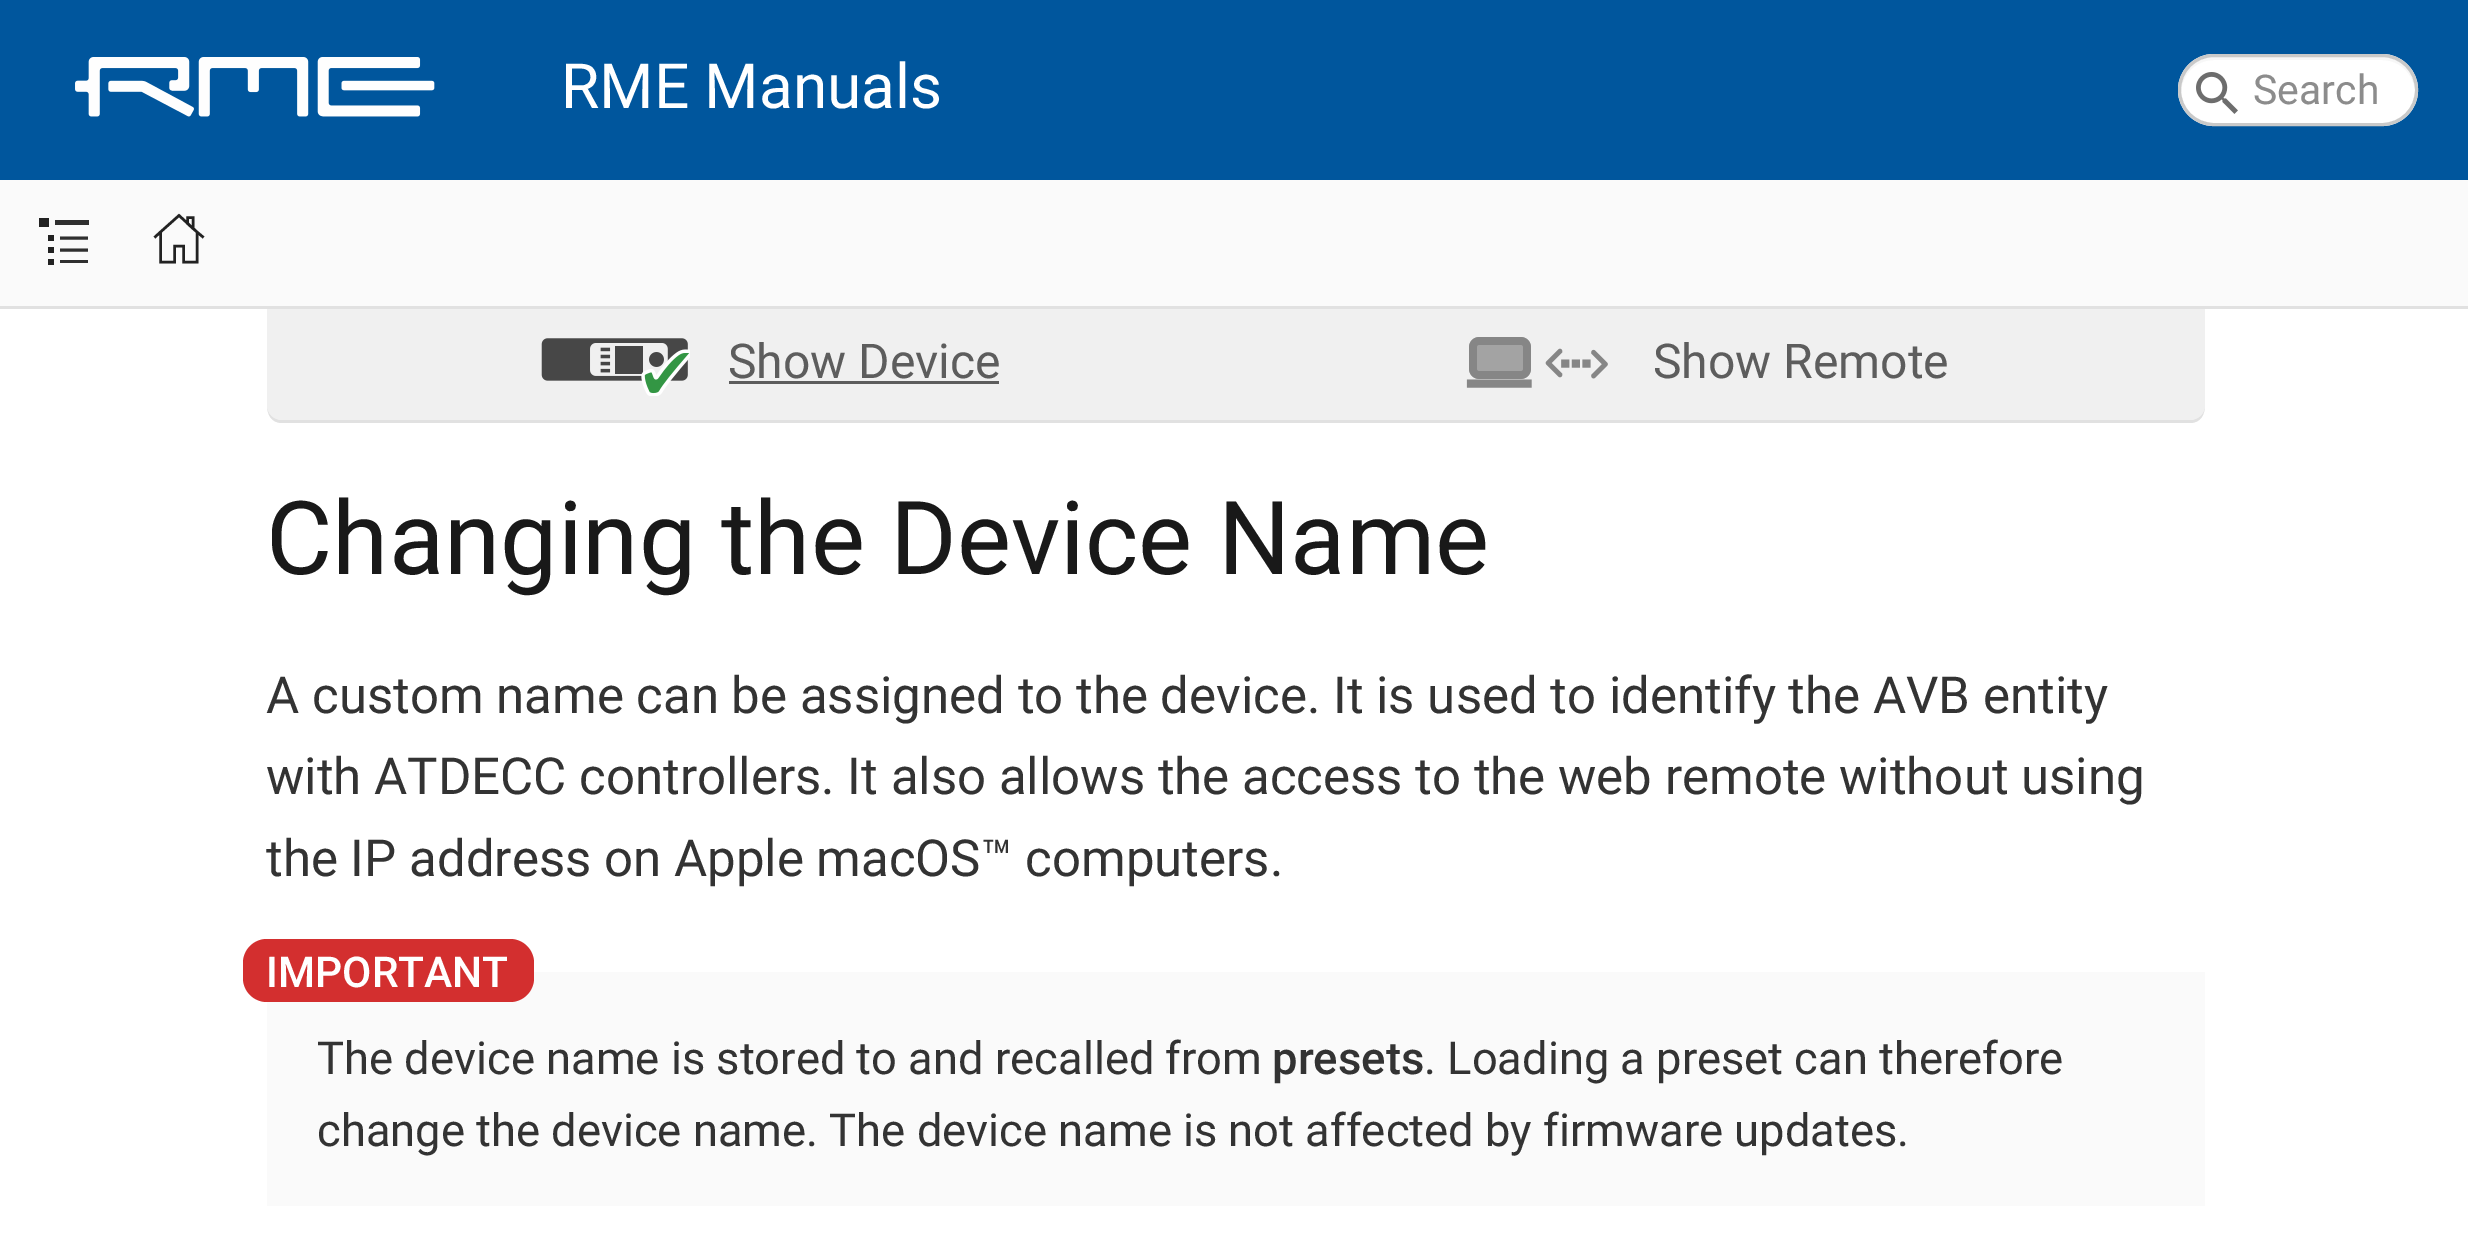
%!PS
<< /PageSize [2468 1234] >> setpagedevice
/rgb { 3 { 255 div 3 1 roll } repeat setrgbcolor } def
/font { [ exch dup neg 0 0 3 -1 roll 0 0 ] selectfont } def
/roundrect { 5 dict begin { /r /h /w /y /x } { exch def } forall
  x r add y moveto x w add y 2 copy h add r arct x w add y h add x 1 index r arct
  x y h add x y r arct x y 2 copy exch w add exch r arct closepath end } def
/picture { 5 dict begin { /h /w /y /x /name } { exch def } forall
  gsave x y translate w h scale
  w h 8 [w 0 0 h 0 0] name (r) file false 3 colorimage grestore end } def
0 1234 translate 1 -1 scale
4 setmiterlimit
255 255 255 rgb
0 0 2468 1234 rectfill
0 86 157 rgb
0 0 2468 180 rectfill
(img/1.rgb) 75 57 360 60 picture
255 255 255 rgb
2178 54 240 72 36 roundrect fill
(img/2.rgb) 2196 72 42 42 picture
247 247 247 rgb
2214 60 moveto 2382 60 lineto 2400 60 2414 74 2415 92 curveto 2415 90 lineto 2415 72 2400 57 2382 57 curveto 2214 57 lineto 2196 57 2181 72 2181 90 curveto 2181 92 lineto 2182 74 2196 60 2214 60 curveto closepath fill
201 201 201 rgb
3 setlinewidth
2179.5 55.5 237 69 34.5 roundrect stroke
225 225 225 rgb
267 405 moveto 267 414 271 423 282 423 curveto 2190 423 lineto 2201 423 2205 414 2205 405 curveto 2205 413 2198 420 2190 420 curveto 282 420 lineto 274 420 267 413 267 405 curveto closepath fill
240 240 240 rgb
267 306 moveto 2205 306 lineto 2205 405 lineto 2205 413.5 2198.5 420 2190 420 curveto 282 420 lineto 273.5 420 267 413.5 267 405 curveto closepath fill
[
  [0 306 2468 3 225 225 225]
  [0 180 2468 126 250 250 250]
  [55 220 34 5 47 47 47]
  [39 218 10 9 34 34 34]
] { aload pop rgb rectfill } forall
47 47 47 rgb
3.1 setlinewidth
60 250 moveto 88 250 lineto stroke
[
  [48 247 6 6 34 34 34]
  [60 260 28 3 47 47 47]
  [48 259 6 6 34 34 34]
] { aload pop rgb rectfill } forall
47 47 47 rgb
60 238 moveto 88 238 lineto stroke
34 34 34 rgb
48 235 6 6 rectfill
2.5 setlinewidth
179 215.5 moveto 160.5 232 lineto 160.5 262 lineto 174.5 262 lineto 174.5 246 lineto 183.5 246 lineto 183.5 262 lineto 197 262 lineto 197 232 lineto closepath 187.5 223.5 moveto 187.5 217.5 lineto 193 217.5 lineto 193 228.5 lineto closepath 160.5 232 moveto 154.5 237.5 lineto 203.5 237.5 moveto 197 232 lineto stroke
(img/3.rgb) 541 338 149 58 picture
93 93 93 rgb
729 381 270 3 rectfill
(img/4.rgb) 1466 337 142 51 picture
250 250 250 rgb
267 972 1938 234 rectfill
211 47 47 rgb
243 939 291 63 24 roundrect fill
/Roboto-Regular 62.25 font
255 255 255 rgb
561 108 moveto (RME Manuals) show
/Roboto-Regular 41 font
140 140 140 rgb
2253 104 moveto (Search) show
/Roboto-Regular 48 font
93 93 93 rgb
728 378 moveto (Show Device) show
1653 378 moveto (Show Remote) show
/Roboto-Regular 102 font
25 25 25 rgb
266 574 moveto (Changing the Device Name) show
/Roboto-Regular 51 font
51 51 51 rgb
[
  [(A custom name can be assigned to the device. It is used to identify the AVB entity) 266 713]
  [(with ATDECC controllers. It also allows the access to the web remote without using) 266 794]
  [(the IP address on Apple macOS™ computers.) 266 876]
] { aload pop moveto show } forall
/Roboto-Medium 42.5 font
255 255 255 rgb
266 987 moveto (IMPORTANT) show
/Roboto-Regular 45.35 font
51 51 51 rgb
317 1074 moveto (The device name is stored to and recalled from) show
/Roboto-Medium 45.35 font
1272 1074 moveto (presets) show
/Roboto-Regular 45.35 font
1424 1074 moveto (. Loading a preset can therefore) show
317 1146 moveto (change the device name. The device name is not affected by firmware updates.) show
showpage
